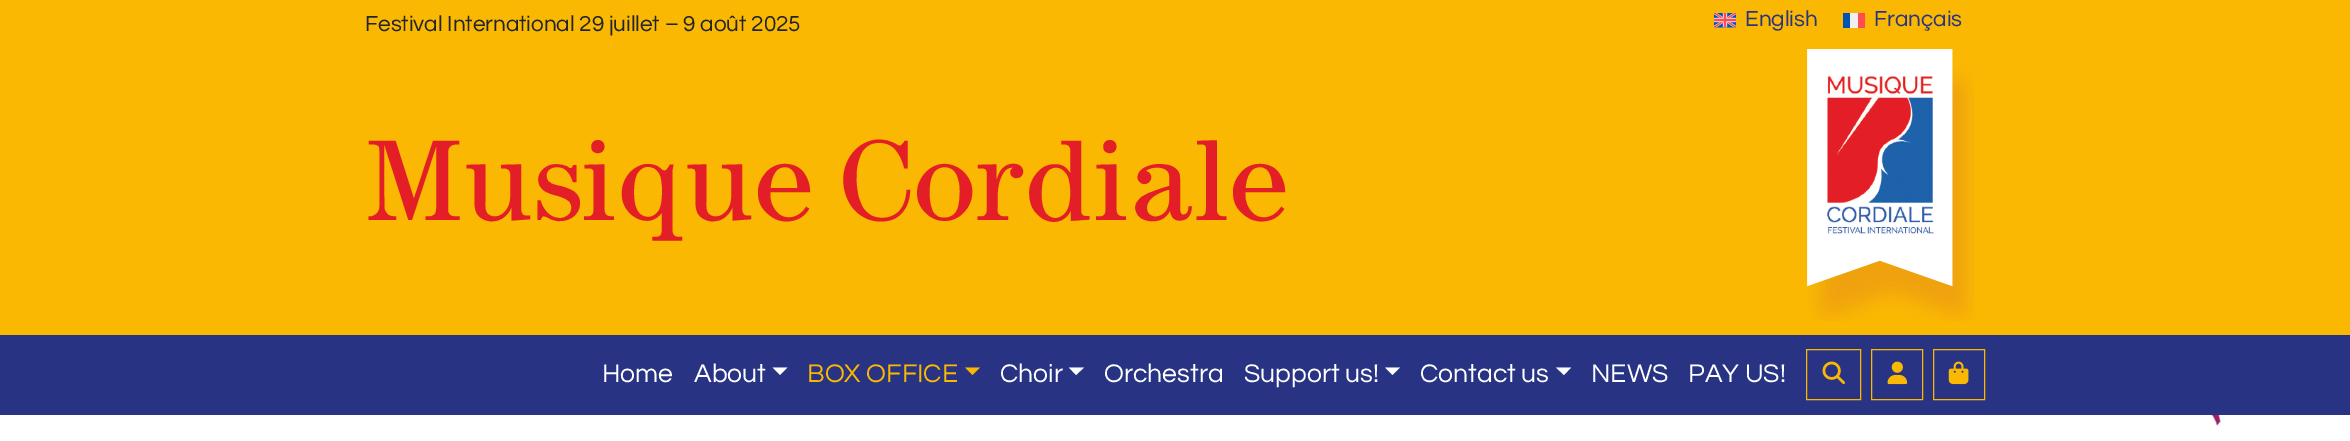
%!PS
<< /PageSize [2350 441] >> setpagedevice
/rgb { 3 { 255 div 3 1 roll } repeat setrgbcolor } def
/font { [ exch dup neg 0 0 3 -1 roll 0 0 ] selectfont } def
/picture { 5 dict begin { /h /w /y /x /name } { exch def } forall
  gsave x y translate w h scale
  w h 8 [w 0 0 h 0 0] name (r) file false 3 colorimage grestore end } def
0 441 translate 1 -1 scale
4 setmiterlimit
255 255 255 rgb
0 0 2350 441 rectfill
(img/1.rgb) 2211 415 10 11 picture
250 184 2 rgb
0 0 2350 335 rectfill
(img/2.rgb) 1714 13 22 15 picture
[
  [1843 13 7 15 0 82 180]
  [1850 13 8 15 240 240 240]
  [1858 13 7 15 255 75 85]
] { aload pop rgb rectfill } forall
(img/3.rgb) 1807 49 167 272 picture
40 51 131 rgb
0 335 2350 80 rectfill
255 255 255 rgb
772.5 367.5 moveto 787.5 367.5 lineto 780 375 lineto closepath fill
250 184 2 rgb
965 367.5 moveto 980 367.5 lineto 972.5 375 lineto closepath fill
255 255 255 rgb
1069 367.5 moveto 1084 367.5 lineto 1076 375 lineto closepath fill
1385 367.5 moveto 1400 367.5 lineto 1392.5 375 lineto closepath fill
1556 367.5 moveto 1571 367.5 lineto 1564 375 lineto closepath fill
250 184 2 rgb
1806.5 349.5 54 50 rectstroke
(img/4.rgb) 1822 361 23 23 picture
1871.5 349.5 51 50 rectstroke
(img/5.rgb) 1887 361 21 24 picture
1933.5 349.5 51 50 rectstroke
(img/6.rgb) 1948 361 21 24 picture
/Questrial-Regular 22.5 font
33 37 41 rgb
365 31 moveto (Festival International 29 juillet – 9 août 2025) show
40 51 131 rgb
1745 26 moveto (English) show
1874 26 moveto (Français) show
/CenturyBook-Regular 100 font
227 30 38 rgb
365 220 moveto (Musique Cordiale) show
/Questrial-Regular 26.5 font
255 255 255 rgb
602 382 moveto (Home) show
694 382 moveto (About) show
250 184 2 rgb
807 382 moveto (BOX OFFICE) show
255 255 255 rgb
[
  [(Choir) 1000 382]
  [(Orchestra) 1104 382]
  [(Support us!) 1244 382]
  [(Contact us) 1420 382]
  [(NEWS) 1591 382]
  [(PAY US!) 1688 382]
] { aload pop moveto show } forall
showpage
